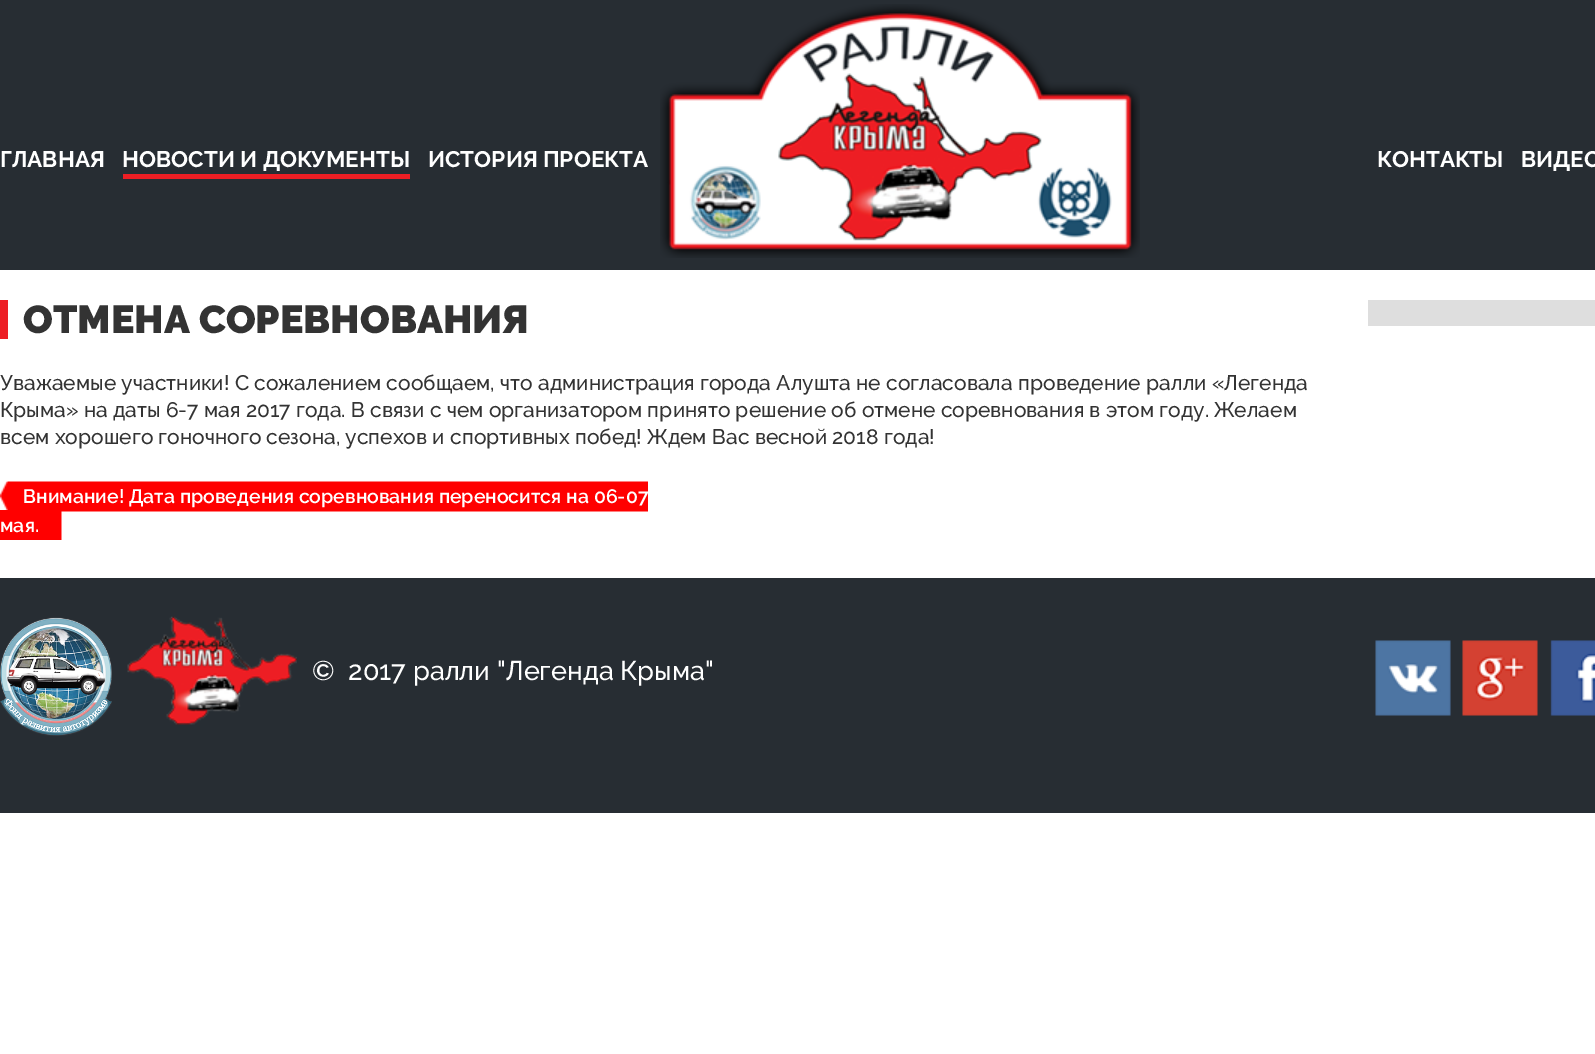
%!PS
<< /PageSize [1595 1054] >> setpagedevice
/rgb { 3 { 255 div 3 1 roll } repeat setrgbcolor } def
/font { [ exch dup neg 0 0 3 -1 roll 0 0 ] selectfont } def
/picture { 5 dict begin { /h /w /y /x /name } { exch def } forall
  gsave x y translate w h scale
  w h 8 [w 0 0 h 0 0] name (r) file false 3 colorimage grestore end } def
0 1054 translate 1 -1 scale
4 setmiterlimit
255 255 255 rgb
0 0 1595 1054 rectfill
39 45 51 rgb
0 0 1595 270 rectfill
(img/1.rgb) 660 4 480 254 picture
237 30 36 rgb
123 174 287 5 rectfill
237 30 37 rgb
0 300 8 39 rectfill
(img/2.rgb) 0 481 648 59 picture
222 222 222 rgb
1368 300 227 26 rectfill
39 45 51 rgb
0 578 1595 235 rectfill
(img/3.rgb) 0 617 112 119 picture
(img/4.rgb) 127 616 170 109 picture
(img/5.rgb) 1375 640 76 76 picture
(img/6.rgb) 1462 640 76 76 picture
(img/7.rgb) 1550 640 45 76 picture
/Raleway-Bold 22.5 font
255 255 255 rgb
[
  [(ГЛАВНАЯ) 0 167]
  [(НОВОСТИ И ДОКУМЕНТЫ) 122 167]
  [(ИСТОРИЯ ПРОЕКТА) 428 167]
  [(КОНТАКТЫ) 1377 167]
  [(ВИДЕО) 1521 167]
] { aload pop moveto show } forall
/Raleway-Black 39 font
51 51 51 rgb
23 333 moveto (ОТМЕНА СОРЕВНОВАНИЯ) show
/Raleway-Medium 21 font
[
  [(Уважаемые участники! С сожалением сообщаем, что администрация города Алушта не согласовала проведение ралли «Легенда) 0 390]
  [(Крыма» на даты 6-7 мая 2017 года. В связи с чем организатором принято решение об отмене соревнования в этом году. Желаем) 0 417]
  [(всем хорошего гоночного сезона, успехов и спортивных побед! Ждем Вас весной 2018 года!) 0 444]
] { aload pop moveto show } forall
/Raleway-SemiBold 19.5 font
255 255 255 rgb
23 503 moveto (Внимание! Дата проведения соревнования переносится на 06-07) show
0 532 moveto (мая.) show
/Raleway-Medium 27 font
312 680 moveto (©  2017 ралли "Легенда Крыма") show
showpage
